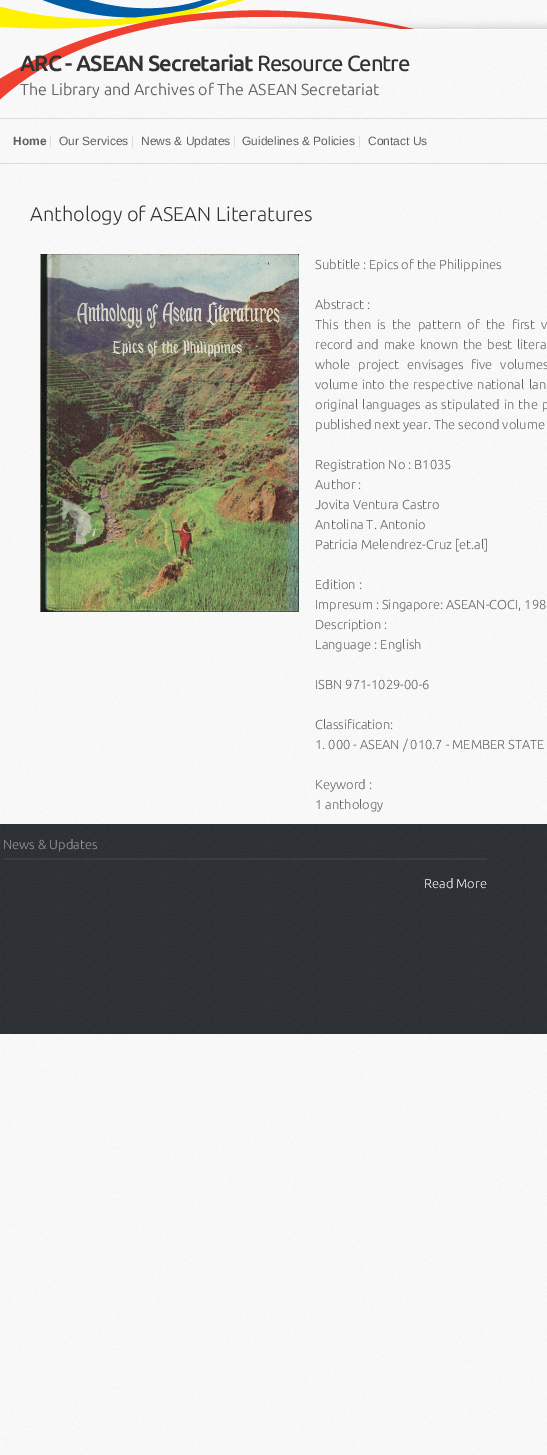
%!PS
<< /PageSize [547 1455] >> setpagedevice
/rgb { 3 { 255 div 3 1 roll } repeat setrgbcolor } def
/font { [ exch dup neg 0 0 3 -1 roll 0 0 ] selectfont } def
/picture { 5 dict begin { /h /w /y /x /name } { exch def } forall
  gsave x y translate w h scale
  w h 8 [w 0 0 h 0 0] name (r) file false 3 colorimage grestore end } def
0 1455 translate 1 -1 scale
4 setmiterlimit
255 255 255 rgb
0 0 547 1455 rectfill
(img/1.rgb) 0 104 547 1351 picture
(img/2.rgb) 0 0 547 104 picture
220 220 221 rgb
0 118 547 1 rectfill
0 163 547 1 rectfill
(img/3.rgb) 40 254 259 358 picture
(img/4.rgb) 0 824 547 210 picture
57 60 65 rgb
3 858 484 2 rectfill
/Ubuntu-Bold 22 font
51 51 51 rgb
20 71 moveto -1 0 (ARC - ASEAN Secretariat) ashow
/Ubuntu-Medium 22 font
257 71 moveto -1 0 (Resource Centre) ashow
/Ubuntu-Regular 16 font
102 102 102 rgb
20 95 moveto (The Library and Archives of The ASEAN Secretariat) show
/LiberationSans-Bold 12 font
96 96 96 rgb
13 145 moveto (Home) show
/LiberationSans-Regular 12 font
220 220 221 rgb
49 145 moveto (|) show
96 96 96 rgb
59 145 moveto (Our Services) show
220 220 221 rgb
131 145 moveto (|) show
96 96 96 rgb
141 145 moveto (News & Updates) show
220 220 221 rgb
233 145 moveto (|) show
96 96 96 rgb
242 145 moveto (Guidelines & Policies) show
220 220 221 rgb
358 145 moveto (|) show
96 96 96 rgb
368 145 moveto (Contact Us) show
/Ubuntu-Light 20 font
51 51 51 rgb
30 221 moveto (Anthology of ASEAN Literatures) show
/Ubuntu-Light 13 font
96 96 96 rgb
315 269 moveto (Subtitle : Epics of the Philippines) show
315 309 moveto (Abstract :) show
315 329 moveto 3.25 0 32 (This then is the pattern of the first v) widthshow
315 349 moveto 1.75 0 32 (record and make known the best litera) widthshow
315 369 moveto 5 0 32 (whole project envisages five volumes) widthshow
315 389 moveto 1.5 0 32 (volume into the respective national lan) widthshow
315 409 moveto 1.25 0 32 (original languages as stipulated in the p) widthshow
[
  [(published next year. The second volume) 315 429]
  [(Registration No : B1035) 315 469]
  [(Author :) 315 489]
  [(Jovita Ventura Castro) 315 509]
  [(Antolina T. Antonio) 315 529]
  [(Patricia Melendrez-Cruz [et.al]) 315 549]
  [(Edition :) 315 589]
  [(Impresum : Singapore: ASEAN-COCI, 198) 315 609]
  [(Description :) 315 629]
  [(Language : English) 315 649]
  [(ISBN 971-1029-00-6) 315 689]
  [(Classification:) 315 729]
  [(1. 000 - ASEAN / 010.7 - MEMBER STATE) 315 749]
  [(Keyword :) 315 789]
  [(1 anthology) 315 809]
] { aload pop moveto show } forall
155 157 159 rgb
3 849 moveto (News & Updates) show
255 255 255 rgb
424 888 moveto (Read More) show
showpage
